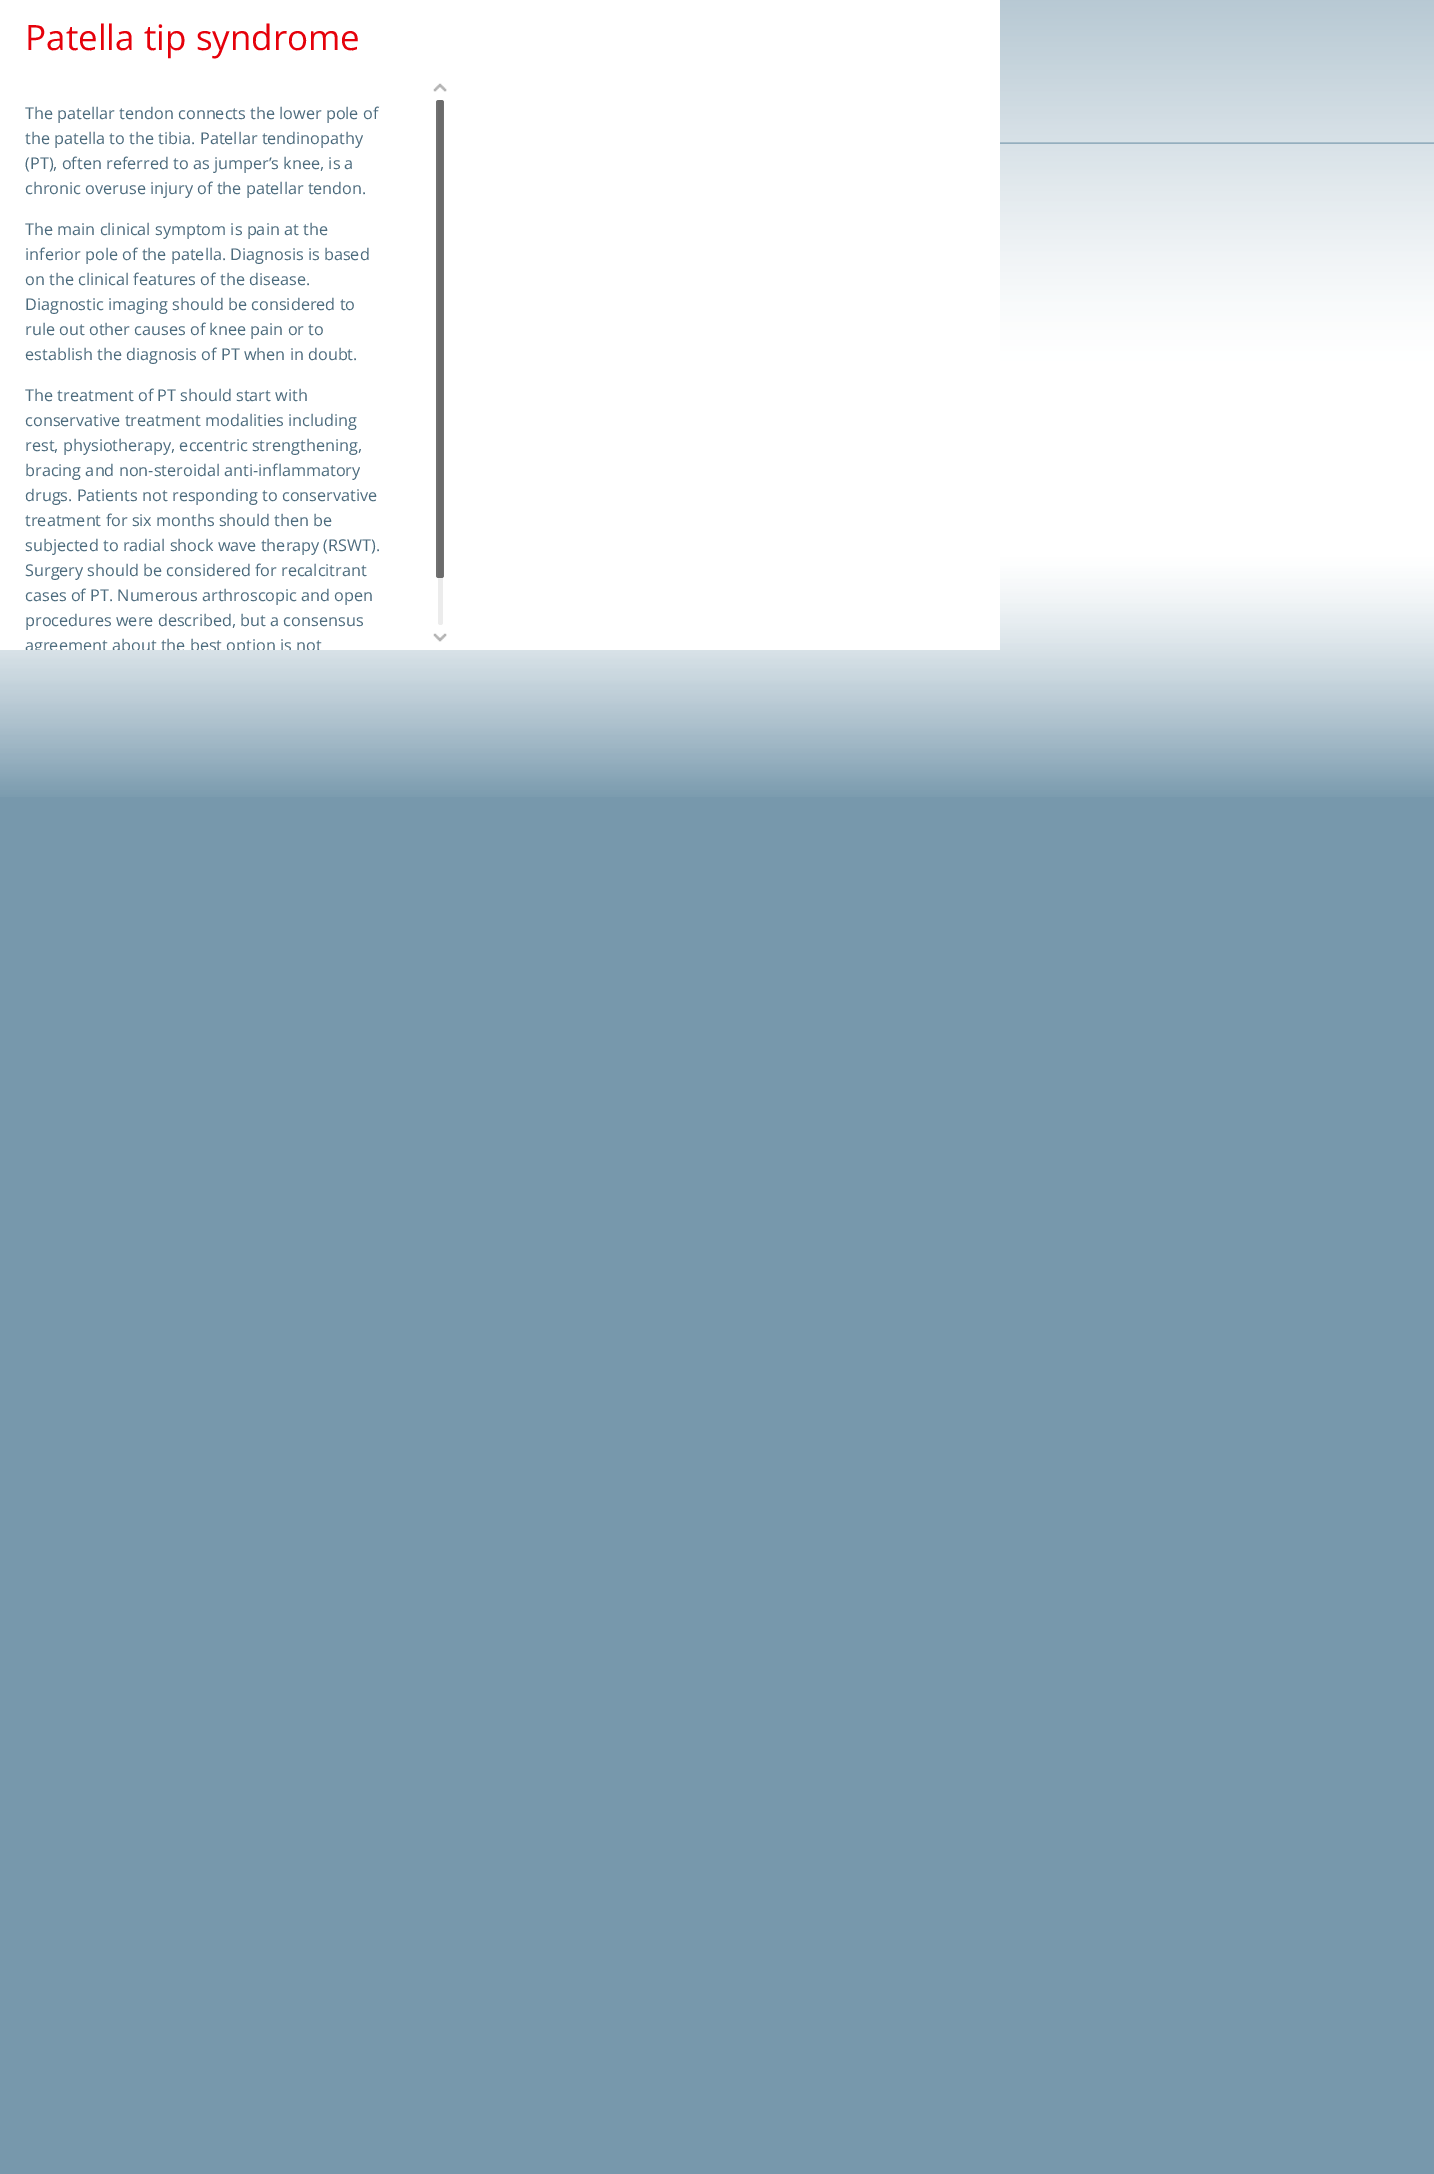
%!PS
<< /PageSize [1434 2174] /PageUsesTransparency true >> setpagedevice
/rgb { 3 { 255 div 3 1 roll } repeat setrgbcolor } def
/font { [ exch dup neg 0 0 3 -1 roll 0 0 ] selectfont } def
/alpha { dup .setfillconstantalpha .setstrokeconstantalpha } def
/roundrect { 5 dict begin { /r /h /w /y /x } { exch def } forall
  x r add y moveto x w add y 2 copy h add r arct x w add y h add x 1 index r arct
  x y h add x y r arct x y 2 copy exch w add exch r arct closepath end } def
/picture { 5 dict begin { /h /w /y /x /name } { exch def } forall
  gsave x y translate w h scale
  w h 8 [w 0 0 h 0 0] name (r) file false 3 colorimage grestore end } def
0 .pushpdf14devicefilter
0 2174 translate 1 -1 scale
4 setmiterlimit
119 152 172 rgb
0 0 1434 2174 rectfill
(img/1.rgb) 0 0 1434 797 picture
255 255 255 rgb
0 0 1000 75 rectfill
0 75 1000 575 rectfill
(img/2.rgb) 433 83 14 9 picture
236 236 236 rgb
438 100 5 525 2.5 roundrect fill
0.75 alpha
64 64 64 rgb
436 100 8 478 2.5 roundrect fill
1 alpha
(img/3.rgb) 433 633 14 9 picture
/OpenSans-Regular 35 font
229 1 11 rgb
25 50 moveto (Patella tip syndrome) show
/OpenSans-Regular 16.25 font
76 107 125 rgb
[
  [(The patellar tendon connects the lower pole of) 25 119]
  [(the patella to the tibia. Patellar tendinopathy) 25 144]
  [(\(PT\), often referred to as jumper’s knee, is a) 25 169]
  [(chronic overuse injury of the patellar tendon.) 25 194]
  [(The main clinical symptom is pain at the) 25 235]
  [(inferior pole of the patella. Diagnosis is based) 25 260]
  [(on the clinical features of the disease.) 25 285]
  [(Diagnostic imaging should be considered to) 25 310]
  [(rule out other causes of knee pain or to) 25 335]
  [(establish the diagnosis of PT when in doubt.) 25 360]
  [(The treatment of PT should start with) 25 401]
  [(conservative treatment modalities including) 25 426]
  [(rest, physiotherapy, eccentric strengthening,) 25 451]
  [(bracing and non-steroidal anti-inflammatory) 25 476]
  [(drugs. Patients not responding to conservative) 25 501]
  [(treatment for six months should then be) 25 526]
  [(subjected to radial shock wave therapy \(RSWT\).) 25 551]
  [(Surgery should be considered for recalcitrant) 25 576]
  [(cases of PT. Numerous arthroscopic and open) 25 601]
  [(procedures were described, but a consensus) 25 626]
] { aload pop moveto show } forall
gsave
0 75 413 575 rectclip
25 651 moveto (agreement about the best option is not) show
grestore
.poppdf14devicefilter showpage
